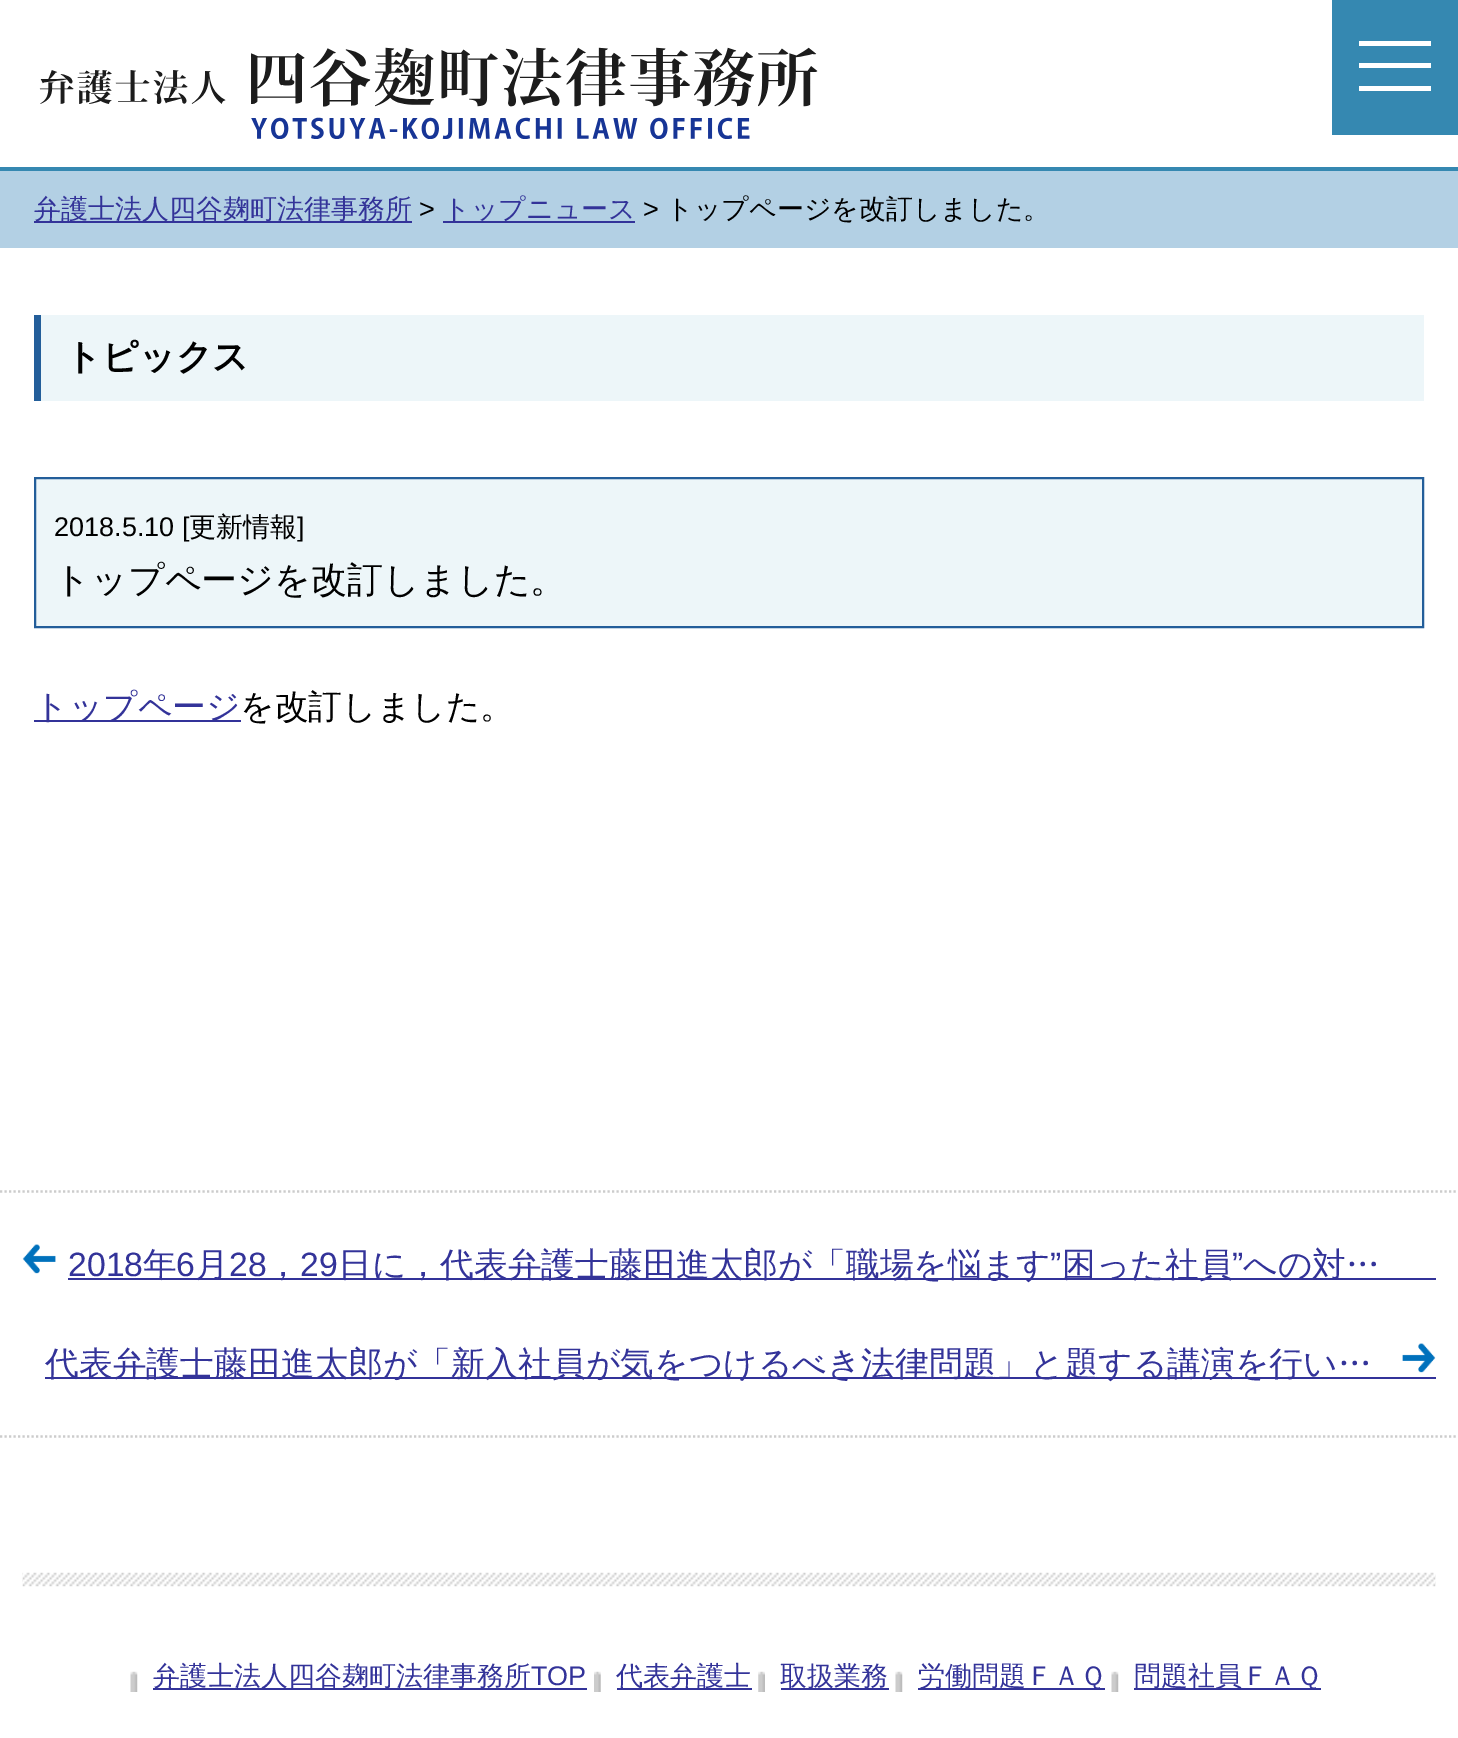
%!PS
<< /PageSize [1458 1738] >> setpagedevice
/rgb { 3 { 255 div 3 1 roll } repeat setrgbcolor } def
/font { [ exch dup neg 0 0 3 -1 roll 0 0 ] selectfont } def
/picture { 5 dict begin { /h /w /y /x /name } { exch def } forall
  gsave x y translate w h scale
  w h 8 [w 0 0 h 0 0] name (r) file false 3 colorimage grestore end } def
0 1738 translate 1 -1 scale
4 setmiterlimit
255 255 255 rgb
0 0 1458 1738 rectfill
[
  [1332 0 126 135 53 136 177]
  [1359 63 72 5 255 255 255]
  [1359 41 72 5 255 255 255]
  [1359 86 72 5 255 255 255]
  [0 167 1458 4 53 136 177]
] { aload pop rgb rectfill } forall
(img/1.rgb) 39 47 779 92 picture
[
  [0 171 1458 77 179 208 228]
  [34 221 378 2 51 51 153]
  [443 221 192 2 51 51 153]
  [41 315 1383 86 237 246 249]
  [34 315 7 86 35 94 154]
] { aload pop rgb rectfill } forall
237 246 249 rgb
35 478 moveto 1423 478 lineto 1423 627 lineto 35 627 lineto closepath gsave fill grestore
35 94 154 rgb
2 setlinewidth
stroke
51 51 153 rgb
34 720 207 2 rectfill
204 204 204 rgb
2.2 setlinewidth
[2.25 2.25] 0 setdash
0 1191.5 moveto 1458 1191.5 lineto stroke
0 1436.5 moveto 1458 1436.5 lineto stroke
(img/2.rgb) 22 1244 34 30 picture
51 51 153 rgb
68 1278 1368 2 rectfill
45 1377 1391 2 rectfill
(img/3.rgb) 1402 1343 34 30 picture
(img/4.rgb) 22 1572 1414 15 picture
(img/5.rgb) 130 1671 8 21 picture
153 1688 434 2 rectfill
(img/6.rgb) 594 1671 7 21 picture
617 1688 135 2 rectfill
(img/7.rgb) 758 1671 7 21 picture
781 1688 108 2 rectfill
(img/5.rgb) 895 1671 8 21 picture
918 1688 187 2 rectfill
(img/5.rgb) 1111 1671 8 21 picture
1134 1688 187 2 rectfill
/WenQuanYiZenHei-Medium 27 font
34 218 moveto (弁護士法人四谷麹町法律事務所) show
/LiberationSans-Regular 27 font
0 0 0 rgb
419 218 moveto (>) show
/WenQuanYiZenHei-Medium 27 font
51 51 153 rgb
443 218 moveto (トップニュース) show
/LiberationSans-Regular 27 font
0 0 0 rgb
643 218 moveto (>) show
/WenQuanYiZenHei-Medium 27 font
666 218 moveto (トップページを改訂しました。) show
/WenQuanYiZenHei-Bold 36 font
65 369 moveto (トピックス) show
/LiberationSans-Regular 27 font
54 536 moveto (2018.5.10 [) show
/WenQuanYiZenHei-Medium 27 font
189 536 moveto (更新情報) show
/LiberationSans-Regular 27 font
297 536 moveto (]) show
/WenQuanYiZenHei-Medium 36 font
54 592 moveto (トップページを改訂しました。) show
/WenQuanYiZenHei-Medium 33.75 font
51 51 153 rgb
34 718 moveto (トップページ) show
0 0 0 rgb
240 718 moveto (を改訂しました。) show
/LiberationSans-Regular 33.75 font
51 51 153 rgb
68 1276 moveto (2018) show
/WenQuanYiZenHei-Medium 33.75 font
143 1276 moveto (年) show
/LiberationSans-Regular 33.75 font
176 1276 moveto (6) show
/WenQuanYiZenHei-Medium 33.75 font
195 1276 moveto (月) show
/LiberationSans-Regular 33.75 font
229 1276 moveto (28) show
300 1276 moveto (29) show
/WenQuanYiZenHei-Medium 33.75 font
338 1276 moveto (日に，代表弁護士藤田進太郎が「職場を悩ます) show
/LiberationSans-Regular 33.75 font
1050 1276 moveto (”) show
/WenQuanYiZenHei-Medium 33.75 font
1062 1276 moveto (困った社員) show
/LiberationSans-Regular 33.75 font
1232 1276 moveto (”) show
/WenQuanYiZenHei-Medium 33.75 font
[
  [(への対…) 1243 1276]
  [(，) 266 1276]
  [(代表弁護士藤田進太郎が「新入社員が気をつけるべき法律問題」と題する講演を行い…) 45 1375]
] { aload pop moveto show } forall
/WenQuanYiZenHei-Medium 27 font
153 1685 moveto (弁護士法人四谷麹町法律事務所) show
/LiberationSans-Regular 27 font
531 1685 moveto (TOP) show
/WenQuanYiZenHei-Medium 27 font
[
  [(代表弁護士) 616 1685]
  [(取扱業務) 780 1685]
  [(労働問題ＦＡＱ) 918 1685]
  [(問題社員ＦＡＱ) 1134 1685]
] { aload pop moveto show } forall
showpage
